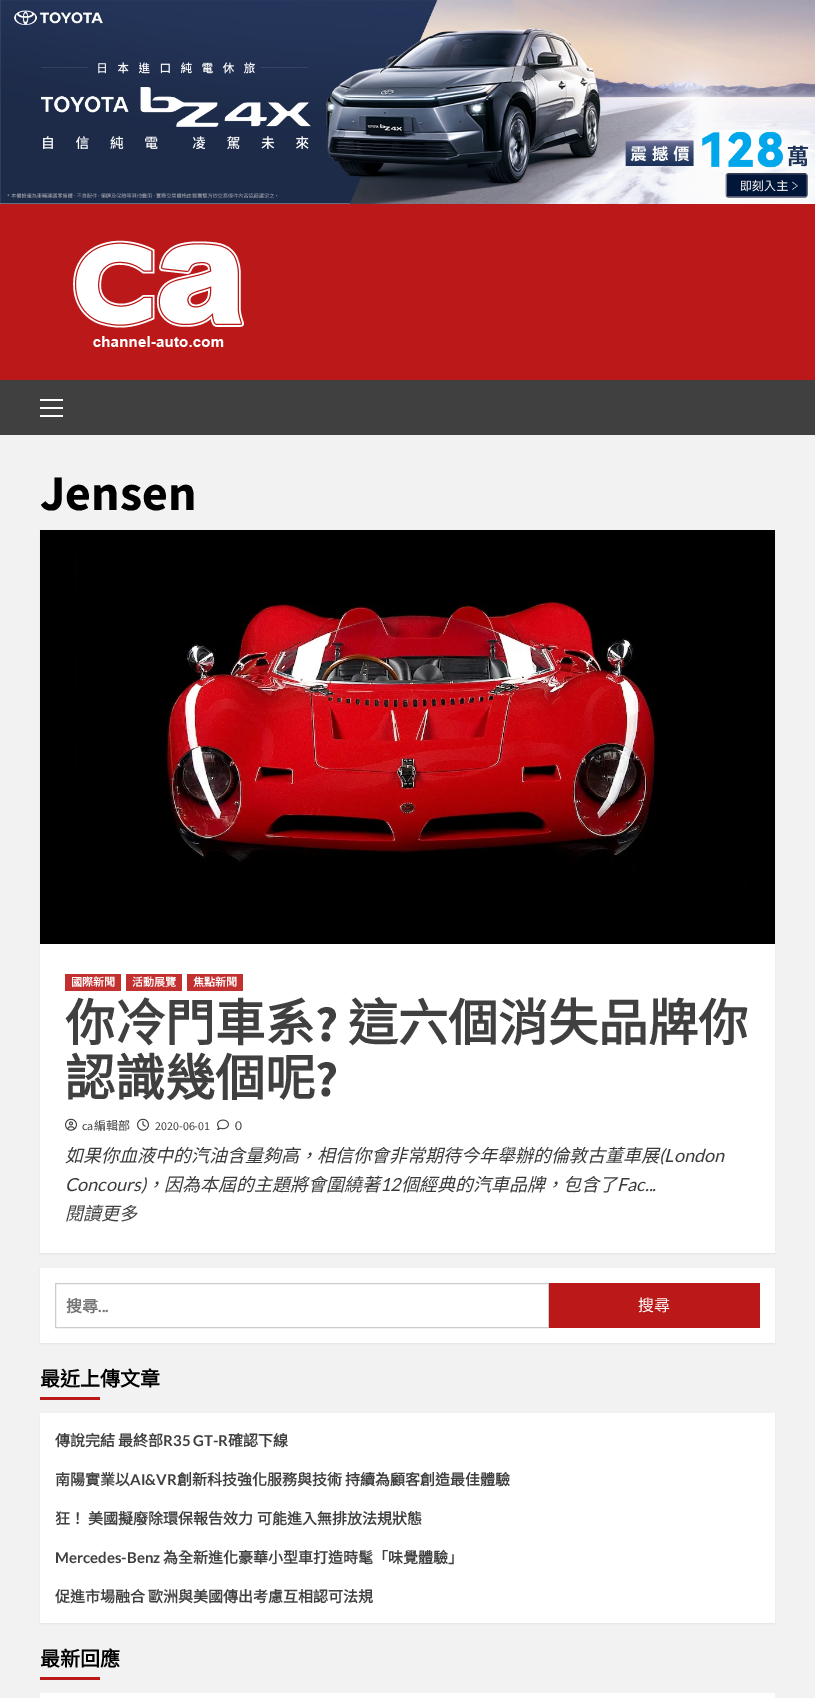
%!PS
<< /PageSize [815 1698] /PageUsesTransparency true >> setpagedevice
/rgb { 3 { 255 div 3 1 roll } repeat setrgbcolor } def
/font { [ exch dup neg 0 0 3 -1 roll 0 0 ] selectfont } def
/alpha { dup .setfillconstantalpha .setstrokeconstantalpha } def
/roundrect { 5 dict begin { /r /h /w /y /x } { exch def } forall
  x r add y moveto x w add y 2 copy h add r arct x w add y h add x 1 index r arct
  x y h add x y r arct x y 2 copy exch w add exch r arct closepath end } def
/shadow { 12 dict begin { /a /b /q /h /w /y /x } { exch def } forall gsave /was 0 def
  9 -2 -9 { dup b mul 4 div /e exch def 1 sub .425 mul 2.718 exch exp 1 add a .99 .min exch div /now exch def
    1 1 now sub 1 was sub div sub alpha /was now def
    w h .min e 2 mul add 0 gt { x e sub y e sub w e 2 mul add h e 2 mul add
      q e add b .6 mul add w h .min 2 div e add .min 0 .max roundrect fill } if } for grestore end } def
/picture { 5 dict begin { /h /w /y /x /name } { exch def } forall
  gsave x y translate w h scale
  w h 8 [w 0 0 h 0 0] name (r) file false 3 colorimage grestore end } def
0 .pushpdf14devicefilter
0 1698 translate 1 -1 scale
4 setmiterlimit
242 242 242 rgb
0 0 815 1698 rectfill
(img/1.rgb) 0 0 815 204 picture
187 25 25 rgb
0 204 815 176 rectfill
(img/2.rgb) 73 240 171 107 picture
[
  [0 380 815 55 64 64 64]
  [40 407 23 2 255 255 255]
  [40 399 23 2 255 255 255]
  [40 415 23 2 255 255 255]
] { aload pop rgb rectfill } forall
0 0 0 rgb
40 531 735 723 0 1 0.05 shadow
(img/3.rgb) 40 530 735 414 picture
[
  [40 944 735 309 255 255 255]
  [65 974 56 17 194 48 48]
  [126 974 56 17 194 48 48]
  [187 974 56 17 194 48 48]
] { aload pop rgb rectfill } forall
(img/4.rgb) 65 1118 12 13 picture
(img/5.rgb) 137 1118 12 13 picture
(img/6.rgb) 217 1119 12 11 picture
0 0 0 rgb
40 1269 735 75 0 1 0.05 shadow
255 255 255 rgb
40 1268 735 75 rectfill
204 204 204 rgb
55.5 1283.5 493 44 rectstroke
187 25 25 rgb
549 1283 211 45 rectfill
40 1397 60 3 rectfill
0 0 0 rgb
40 1414 735 210 0 1 0.05 shadow
[
  [40 1413 735 210 255 255 255]
  [40 1677 60 3 187 25 25]
  [40 1693 735 5 255 255 255]
] { aload pop rgb rectfill } forall
/SourceSansPro-Bold 50 font
0 0 0 rgb
40 510 moveto (Jensen) show
/NotoSansCJKTC-Bold 11 font
255 255 255 rgb
[
  [(國際新聞) 71 986]
  [(活動展覽) 132 986]
  [(焦點新聞) 193 986]
] { aload pop moveto show } forall
/NotoSansCJKTC-Bold 50 font
64 64 64 rgb
65 1041 moveto (你冷門車系) show
/SourceSansPro-Bold 50 font
315 1041 moveto (?) show
/NotoSansCJKTC-Bold 50 font
348 1041 moveto (這六個消失品牌你) show
65 1096 moveto (認識幾個呢) show
/SourceSansPro-Bold 50 font
315 1096 moveto (?) show
/SourceSansPro-Regular 12 font
82 1130 moveto (ca) show
/NotoSansCJKTC-Regular 12 font
94 1130 moveto (編輯部) show
/SourceSansPro-Regular 12 font
155 1130 moveto (2020-06-01) show
/Lato-Regular 12 font
235 1130 moveto (0) show
/NotoSansCJKTC-Italic 18 font
58 58 58 rgb
65 1162 moveto (如果你血液中的汽油含量夠高，相信你會非常期待今年舉辦的倫敦古董車展) show
/Lato-Italic 18 font
659 1162 moveto (\(London) show
65 1191 moveto (Concours\)) show
/NotoSansCJKTC-Italic 18 font
146 1191 moveto (，因為本屆的主題將會圍繞著) show
/Lato-Italic 18 font
380 1191 moveto (12) show
/NotoSansCJKTC-Italic 18 font
401 1191 moveto (個經典的汽車品牌，包含了) show
/Lato-Italic 18 font
617 1191 moveto (Fac...) show
/NotoSansCJKTC-Italic 18 font
64 64 64 rgb
65 1220 moveto (閱讀更多) show
/NotoSansCJKTC-Bold 16 font
117 117 117 rgb
66 1312 moveto (搜尋) show
/Lato-Bold 16 font
98 1312 moveto (...) show
/NotoSansCJKTC-Regular 16 font
255 255 255 rgb
638 1311 moveto (搜尋) show
/NotoSansCJKTC-Bold 20 font
0 0 0 rgb
40 1386 moveto (最近上傳文章) show
/NotoSansCJKTC-Bold 15 font
64 64 64 rgb
55 1446 moveto (傳說完結) show
118 1446 moveto (最終部) show
/Lato-Bold 15 font
163 1446 moveto (R35 GT-R) show
/NotoSansCJKTC-Bold 15 font
228 1446 moveto (確認下線) show
55 1485 moveto (南陽實業以) show
/Lato-Bold 15 font
130 1485 moveto (AI&VR) show
/NotoSansCJKTC-Bold 15 font
177 1485 moveto (創新科技強化服務與技術 持續為顧客創造最佳體驗) show
55 1524 moveto (狂！ 美國擬廢除環保報告效力 可能進入無排放法規狀態) show
/Lato-Bold 15 font
55 1563 moveto (Mercedes-Benz) show
/NotoSansCJKTC-Bold 15 font
163 1563 moveto (為全新進化豪華小型車打造時髦「味覺體驗」) show
55 1602 moveto (促進市場融合 歐洲與美國傳出考慮互相認可法規) show
/NotoSansCJKTC-Bold 20 font
0 0 0 rgb
40 1666 moveto (最新回應) show
.poppdf14devicefilter showpage
